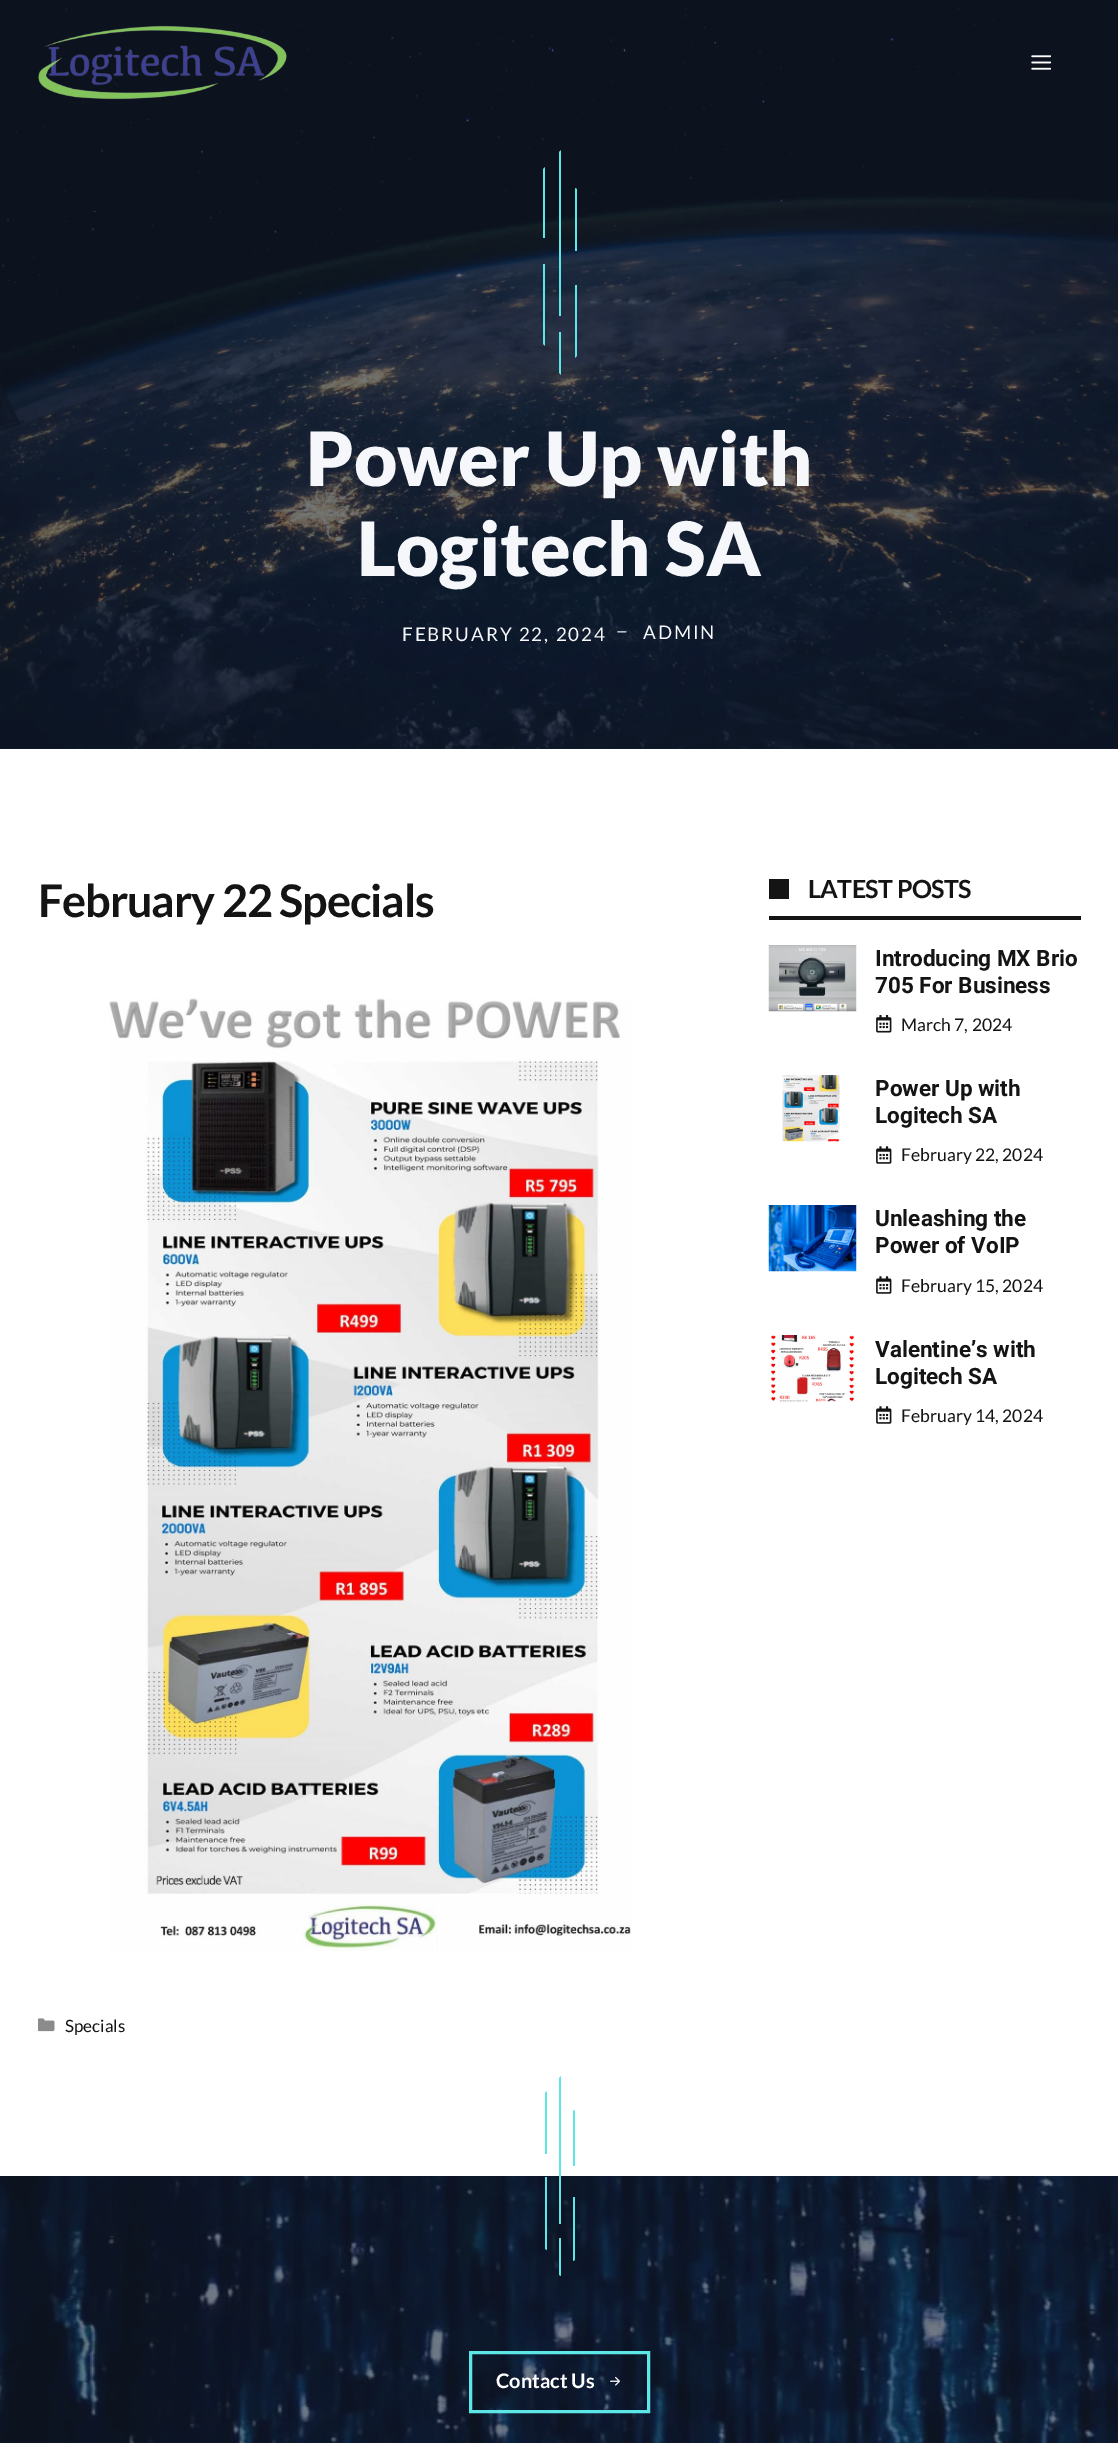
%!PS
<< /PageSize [1118 2443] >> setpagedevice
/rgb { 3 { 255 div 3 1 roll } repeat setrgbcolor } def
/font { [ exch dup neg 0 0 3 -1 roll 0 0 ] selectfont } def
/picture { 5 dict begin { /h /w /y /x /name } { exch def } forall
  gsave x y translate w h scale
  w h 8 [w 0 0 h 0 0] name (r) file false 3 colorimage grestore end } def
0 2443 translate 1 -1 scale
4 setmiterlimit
255 255 255 rgb
0 0 1118 2443 rectfill
20 31 51 rgb
0 0 1118 749 rectfill
(img/3.rgb) 0 0 1118 749 picture
(img/1.rgb) 38 25 249 75 picture
(img/2.rgb) 1031 55 20 15 picture
92 230 230 rgb
561 316 moveto 561 150 lineto 559 152 lineto 559 316 lineto closepath 559 332 moveto 559 373 lineto 561 375 lineto 561 332 lineto closepath 575 285 moveto 575 358 lineto 577 356 lineto 577 285 lineto closepath 575 251 moveto 577 251 lineto 577 189 lineto 575 188 lineto closepath 545 238 moveto 545 167 lineto 543 169 lineto 543 238 lineto closepath 545 264 moveto 543 264 lineto 543 344 lineto 545 346 lineto closepath fill
(img/4.rgb) 617 631 10 2 picture
(img/5.rgb) 109 998 522 953 picture
(img/6.rgb) 38 2018 17 14 picture
20 20 20 rgb
769 916 312 4 rectfill
769 879 20 20 rectfill
(img/7.rgb) 768 945 89 67 picture
(img/8.rgb) 876 1015 16 18 picture
(img/9.rgb) 782 1075 58 67 picture
(img/10.rgb) 876 1146 16 18 picture
(img/11.rgb) 768 1205 89 67 picture
(img/10.rgb) 876 1276 16 18 picture
(img/12.rgb) 771 1335 84 67 picture
(img/10.rgb) 876 1406 16 18 picture
20 31 51 rgb
0 2176 1118 267 rectfill
(img/13.rgb) 0 2176 1118 267 picture
92 230 230 rgb
561 2224 moveto 561 2076 lineto 559 2078 lineto 559 2224 lineto closepath 559 2238 moveto 559 2275 lineto 561 2276 lineto 561 2238 lineto closepath 573 2197 moveto 573 2261 lineto 575 2260 lineto 575 2197 lineto closepath 573 2166 moveto 575 2166 lineto 575 2111 lineto 573 2110 lineto closepath 547 2154 moveto 547 2091 lineto 545 2093 lineto 545 2154 lineto closepath 547 2177 moveto 545 2177 lineto 545 2249 lineto 547 2250 lineto closepath fill
3 setlinewidth
470.5 2352.5 178 59 rectstroke
(img/14.rgb) 610 2376 10 10 picture
/Lato-Black 75 font
245 247 250 rgb
306 486 moveto (Power Up with) show
357 576 moveto (Logitech SA) show
/Lato-Regular 18.75 font
402 641 moveto 1.9 0 (FEBRUARY 22, 2024) ashow
643 639 moveto 1.9 0 (ADMIN) ashow
/Lato-Bold 45 font
20 20 20 rgb
38 917 moveto -1.1 0 (February 22 Specials) ashow
/Lato-Regular 17 font
65 2032 moveto (Specials) show
/Lato-Bold 25 font
808 898 moveto -0.6 0 (LATEST POSTS) ashow
/Roboto-Bold 22.5 font
875 966 moveto (Introducing MX Brio) show
875 993 moveto (705 For Business) show
/Lato-Regular 17.5 font
901 1031 moveto (March 7, 2024) show
/Roboto-Bold 22.5 font
875 1096 moveto (Power Up with) show
875 1123 moveto (Logitech SA) show
/Lato-Regular 17.5 font
901 1161 moveto (February 22, 2024) show
/Roboto-Bold 22.5 font
875 1226 moveto (Unleashing the) show
875 1253 moveto (Power of VoIP) show
/Lato-Regular 17.5 font
901 1292 moveto (February 15, 2024) show
/Roboto-Bold 22.5 font
875 1357 moveto (Valentine’s with) show
875 1384 moveto (Logitech SA) show
/Lato-Regular 17.5 font
901 1422 moveto (February 14, 2024) show
/Lato-Bold 20 font
255 255 255 rgb
496 2388 moveto (Contact Us) show
showpage
